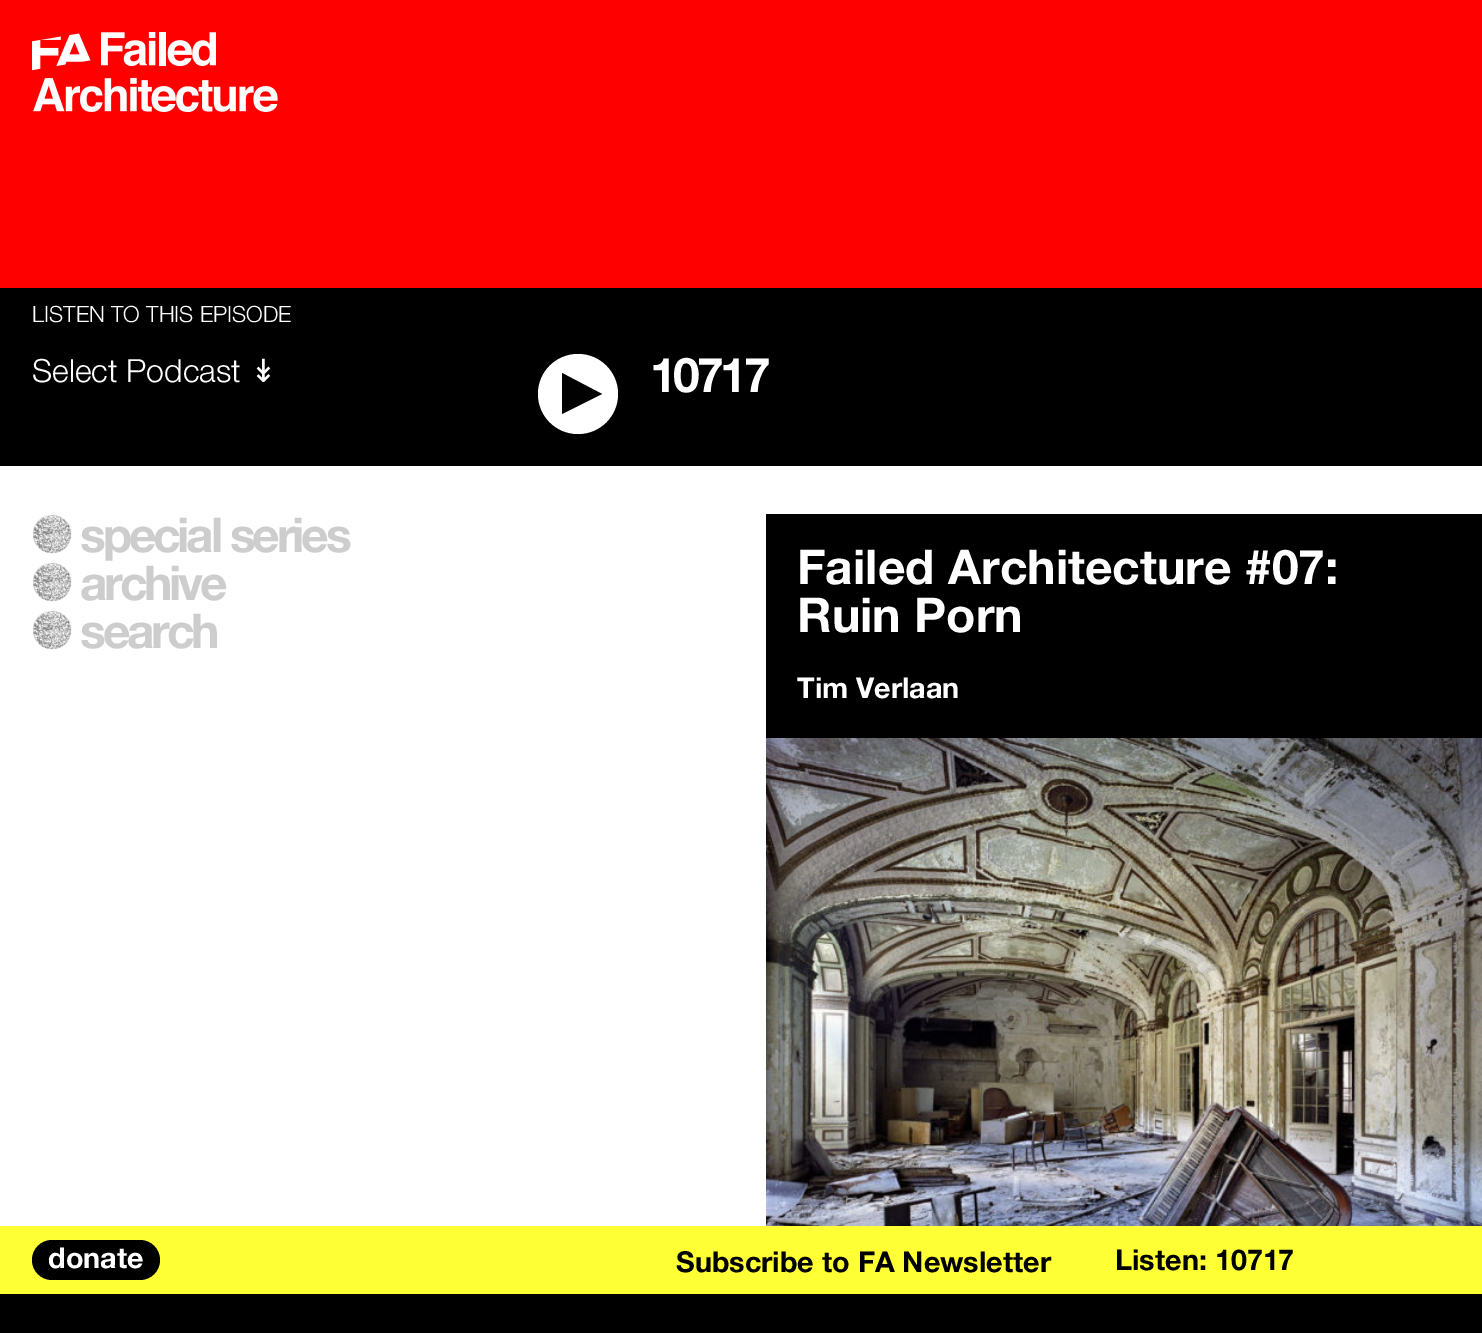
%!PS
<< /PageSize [1482 1333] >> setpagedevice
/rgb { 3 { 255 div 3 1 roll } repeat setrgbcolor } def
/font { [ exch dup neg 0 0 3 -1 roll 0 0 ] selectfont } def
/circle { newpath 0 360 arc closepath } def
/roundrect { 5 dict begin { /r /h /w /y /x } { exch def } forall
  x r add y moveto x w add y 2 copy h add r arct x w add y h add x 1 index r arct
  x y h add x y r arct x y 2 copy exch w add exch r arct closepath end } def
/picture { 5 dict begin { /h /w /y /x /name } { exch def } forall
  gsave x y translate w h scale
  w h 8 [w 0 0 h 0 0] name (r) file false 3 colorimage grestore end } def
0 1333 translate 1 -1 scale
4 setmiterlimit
255 255 255 rgb
0 0 1482 1333 rectfill
255 0 0 rgb
0 0 1482 288 rectfill
(img/1.rgb) 32 32 246 80 picture
0 0 0 rgb
0 288 1482 178 rectfill
255 255 255 rgb
578 394 40 circle fill
1 1 1 rgb
602 394 moveto 562 414 lineto 562 373 lineto fill
(img/2.rgb) 32 514 40 40 picture
(img/2.rgb) 32 562 40 40 picture
(img/2.rgb) 32 610 40 40 picture
0 0 0 rgb
766 514 716 224 rectfill
(img/3.rgb) 766 738 716 488 picture
255 255 54 rgb
0 1226 1482 68 rectfill
0 0 0 rgb
0 1294 1482 39 rectfill
32 1240 128 40 20 roundrect fill
/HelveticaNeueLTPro-Regular 22.4 font
255 255 255 rgb
32 322 moveto (LISTEN TO THIS EPISODE) show
/HelveticaNeueLTPro-Regular 32 font
32 382 moveto (Select Podcast) show
/DejaVuSans-Regular 32 font
250 382 moveto (↡) show
/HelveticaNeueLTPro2-Regular 48 font
650 392 moveto -3.25 0 (10717) ashow
205 205 205 rgb
80 552 moveto -3.25 0 (special series) ashow
80 600 moveto -3.25 0 (archive) ashow
80 648 moveto -3.25 0 (search) ashow
255 255 255 rgb
797 584 moveto (Failed Architecture #07:) show
797 632 moveto (Ruin Porn) show
/HelveticaNeueLTPro2-Regular 28.75 font
797 698 moveto (Tim Verlaan) show
48 1268 moveto (donate) show
0 0 0 rgb
676 1272 moveto (Subscribe to FA Newsletter) show
1115 1270 moveto (Listen: 10717) show
showpage
